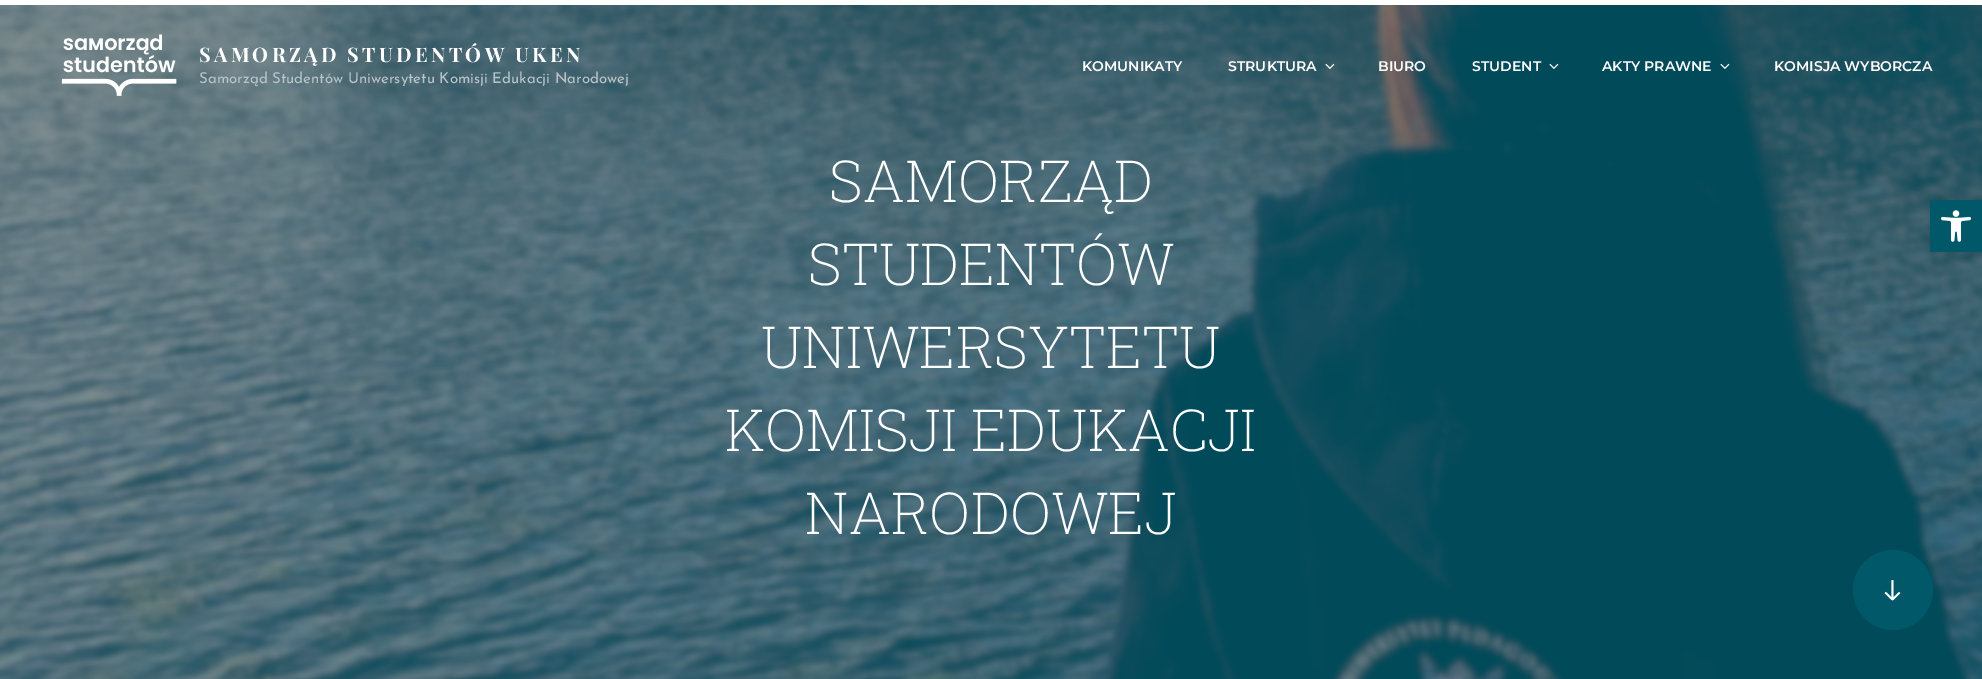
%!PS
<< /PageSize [1982 679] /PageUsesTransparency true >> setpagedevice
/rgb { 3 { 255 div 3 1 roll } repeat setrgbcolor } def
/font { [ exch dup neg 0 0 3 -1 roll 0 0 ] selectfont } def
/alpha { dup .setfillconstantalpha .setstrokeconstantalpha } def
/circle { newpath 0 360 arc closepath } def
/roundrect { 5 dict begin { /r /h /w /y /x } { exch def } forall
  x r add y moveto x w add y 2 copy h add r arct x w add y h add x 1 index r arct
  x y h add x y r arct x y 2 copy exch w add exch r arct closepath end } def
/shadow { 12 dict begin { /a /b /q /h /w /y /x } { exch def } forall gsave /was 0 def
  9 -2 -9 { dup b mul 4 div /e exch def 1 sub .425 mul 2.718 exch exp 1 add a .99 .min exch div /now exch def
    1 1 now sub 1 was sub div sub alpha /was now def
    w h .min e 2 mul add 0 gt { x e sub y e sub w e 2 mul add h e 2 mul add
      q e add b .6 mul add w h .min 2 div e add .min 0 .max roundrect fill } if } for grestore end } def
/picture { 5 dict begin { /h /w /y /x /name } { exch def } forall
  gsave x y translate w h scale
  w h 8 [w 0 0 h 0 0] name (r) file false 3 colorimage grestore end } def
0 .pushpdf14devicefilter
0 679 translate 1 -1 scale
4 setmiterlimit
255 255 255 rgb
0 0 1982 679 rectfill
(img/5.rgb) 0 5 1982 674 picture
(img/1.rgb) 61 34 116 62 picture
(img/2.rgb) 1325 63 10 6 picture
(img/3.rgb) 1549 63 10 6 picture
(img/4.rgb) 1720 63 10 6 picture
0 88 105 rgb
1893 590 40 circle fill
(img/6.rgb) 1884 580 17 21 picture
0 0 0 rgb
1930 200 52 52 0 5 0.1 shadow
0 88 105 rgb
1930 200 52 52 rectfill
(img/7.rgb) 1941 210 30 32 picture
/PlayfairDisplay-Bold 20 font
255 255 255 rgb
199 62 moveto 3.3 0 (SAMORZĄD STUDENTÓW UKEN) ashow
/JosefinSans-Regular 15 font
185 196 200 rgb
199 83 moveto (Samorząd Studentów Uniwersytetu Komisji Edukacji Narodowej) show
/Montserrat-SemiBold 14 font
255 255 255 rgb
[
  [(KOMUNIKATY) 1082 71]
  [(STRUKTURA) 1228 71]
  [(BIURO) 1378 71]
  [(STUDENT) 1472 71]
  [(AKTY PRAWNE) 1602 71]
  [(KOMISJA WYBORCZA) 1774 71]
] { aload pop moveto show } forall
/RobotoSlab-ExtraLight 58 font
[
  [(SAMORZĄD) 829 202]
  [(STUDENTÓW) 808 285]
  [(UNIWERSYTETU) 761 368]
  [(KOMISJI EDUKACJI) 725 451]
  [(NARODOWEJ) 805 534]
] { aload pop moveto show } forall
.poppdf14devicefilter showpage
